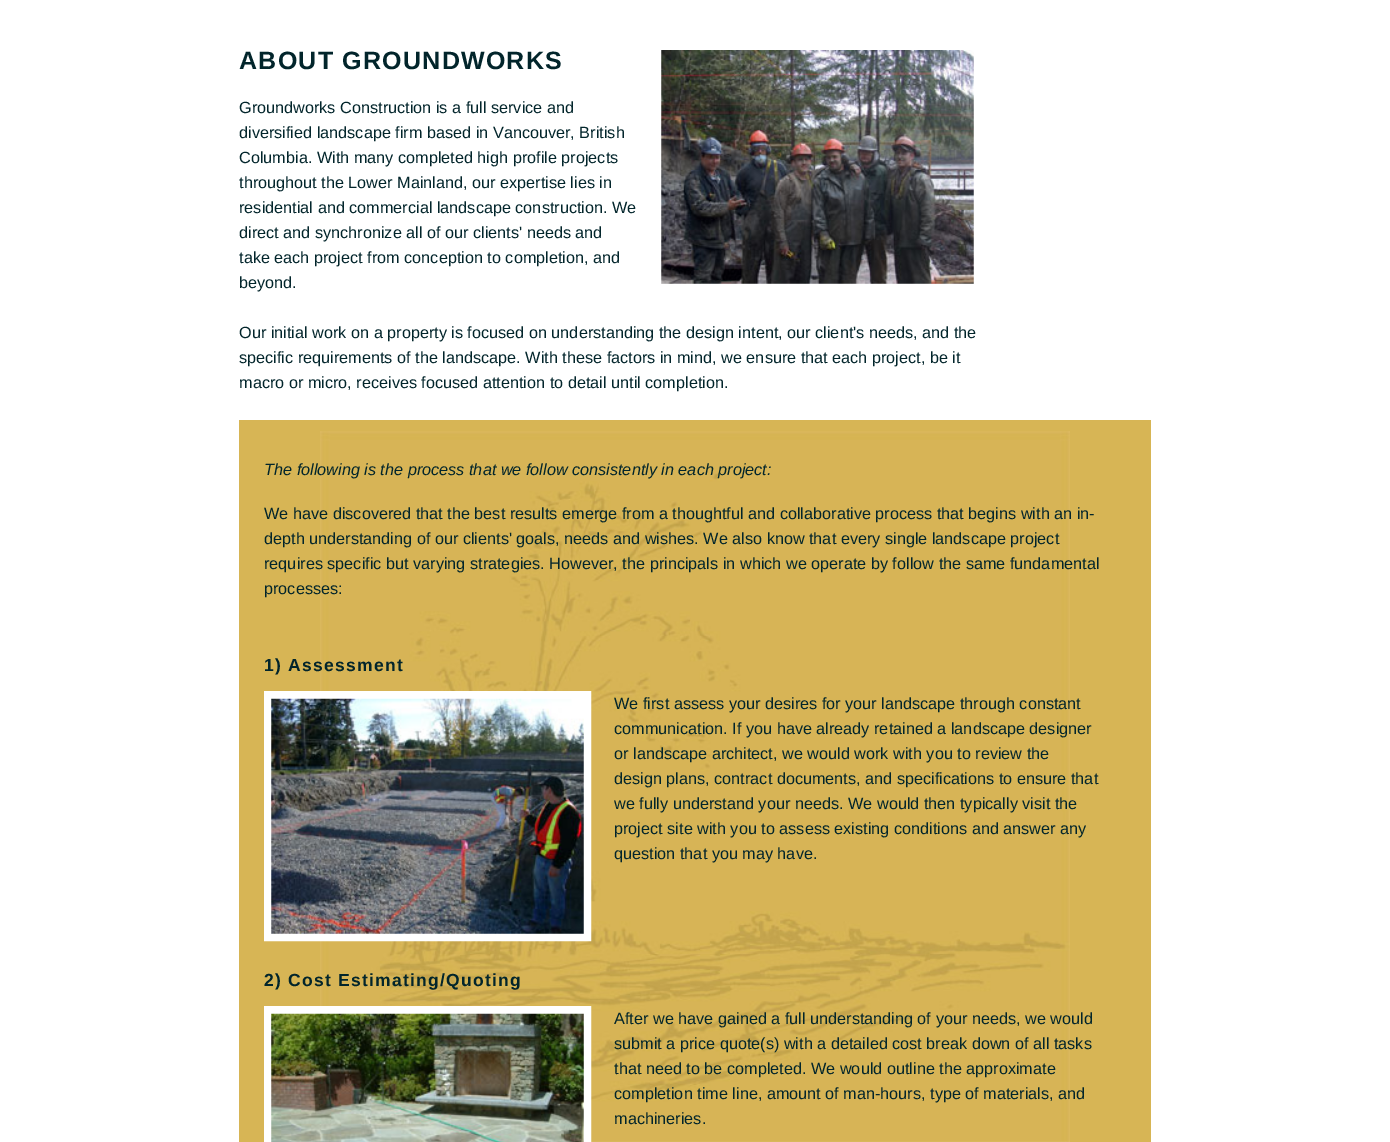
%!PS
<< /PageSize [1390 1142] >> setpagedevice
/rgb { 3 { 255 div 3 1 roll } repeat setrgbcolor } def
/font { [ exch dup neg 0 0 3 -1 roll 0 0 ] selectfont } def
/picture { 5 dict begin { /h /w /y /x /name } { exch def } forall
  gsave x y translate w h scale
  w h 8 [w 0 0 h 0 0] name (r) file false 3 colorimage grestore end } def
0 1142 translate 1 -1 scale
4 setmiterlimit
255 255 255 rgb
0 0 1390 1142 rectfill
(img/1.rgb) 661 50 313 234 picture
215 181 85 rgb
239 420 912 722 rectfill
(img/2.rgb) 320 431 750 711 picture
255 255 255 rgb
8 setlinewidth
268 695 319 242 rectstroke
(img/3.rgb) 271 698 313 236 picture
268 1010 319 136 rectstroke
(img/4.rgb) 271 1013 313 129 picture
/LiberationSans-Bold 25 font
2 37 43 rgb
239 69 moveto 1.25 0 (ABOUT GROUNDWORKS) ashow
/LiberationSans-Regular 16.25 font
[
  [(Groundworks Construction is a full service and) 239 113]
  [(diversified landscape firm based in Vancouver, British) 239 138]
  [(Columbia. With many completed high profile projects) 239 163]
  [(throughout the Lower Mainland, our expertise lies in) 239 188]
  [(residential and commercial landscape construction. We) 239 213]
  [(direct and synchronize all of our clients' needs and) 239 238]
  [(take each project from conception to completion, and) 239 263]
  [(beyond.) 239 288]
  [(Our initial work on a property is focused on understanding the design intent, our client's needs, and the) 239 338]
  [(specific requirements of the landscape. With these factors in mind, we ensure that each project, be it) 239 363]
  [(macro or micro, receives focused attention to detail until completion.) 239 388]
] { aload pop moveto show } forall
/LiberationSans-Italic 16.25 font
264 475 moveto (The following is the process that we follow consistently in each project:) show
/LiberationSans-Regular 16.25 font
[
  [(We have discovered that the best results emerge from a thoughtful and collaborative process that begins with an in-) 264 519]
  [(depth understanding of our clients' goals, needs and wishes. We also know that every single landscape project) 264 544]
  [(requires specific but varying strategies. However, the principals in which we operate by follow the same fundamental) 264 569]
  [(processes:) 264 594]
] { aload pop moveto show } forall
/LiberationSans-Bold 17.5 font
264 671 moveto 1.25 0 (1\) Assessment) ashow
/LiberationSans-Regular 16.25 font
[
  [(We first assess your desires for your landscape through constant) 614 709]
  [(communication. If you have already retained a landscape designer) 614 734]
  [(or landscape architect, we would work with you to review the) 614 759]
  [(design plans, contract documents, and specifications to ensure that) 614 784]
  [(we fully understand your needs. We would then typically visit the) 614 809]
  [(project site with you to assess existing conditions and answer any) 614 834]
  [(question that you may have.) 614 859]
] { aload pop moveto show } forall
/LiberationSans-Bold 17.5 font
264 986 moveto 1.25 0 (2\) Cost Estimating/Quoting) ashow
/LiberationSans-Regular 16.25 font
[
  [(After we have gained a full understanding of your needs, we would) 614 1024]
  [(submit a price quote\(s\) with a detailed cost break down of all tasks) 614 1049]
  [(that need to be completed. We would outline the approximate) 614 1074]
  [(completion time line, amount of man-hours, type of materials, and) 614 1099]
  [(machineries.) 614 1124]
] { aload pop moveto show } forall
showpage
